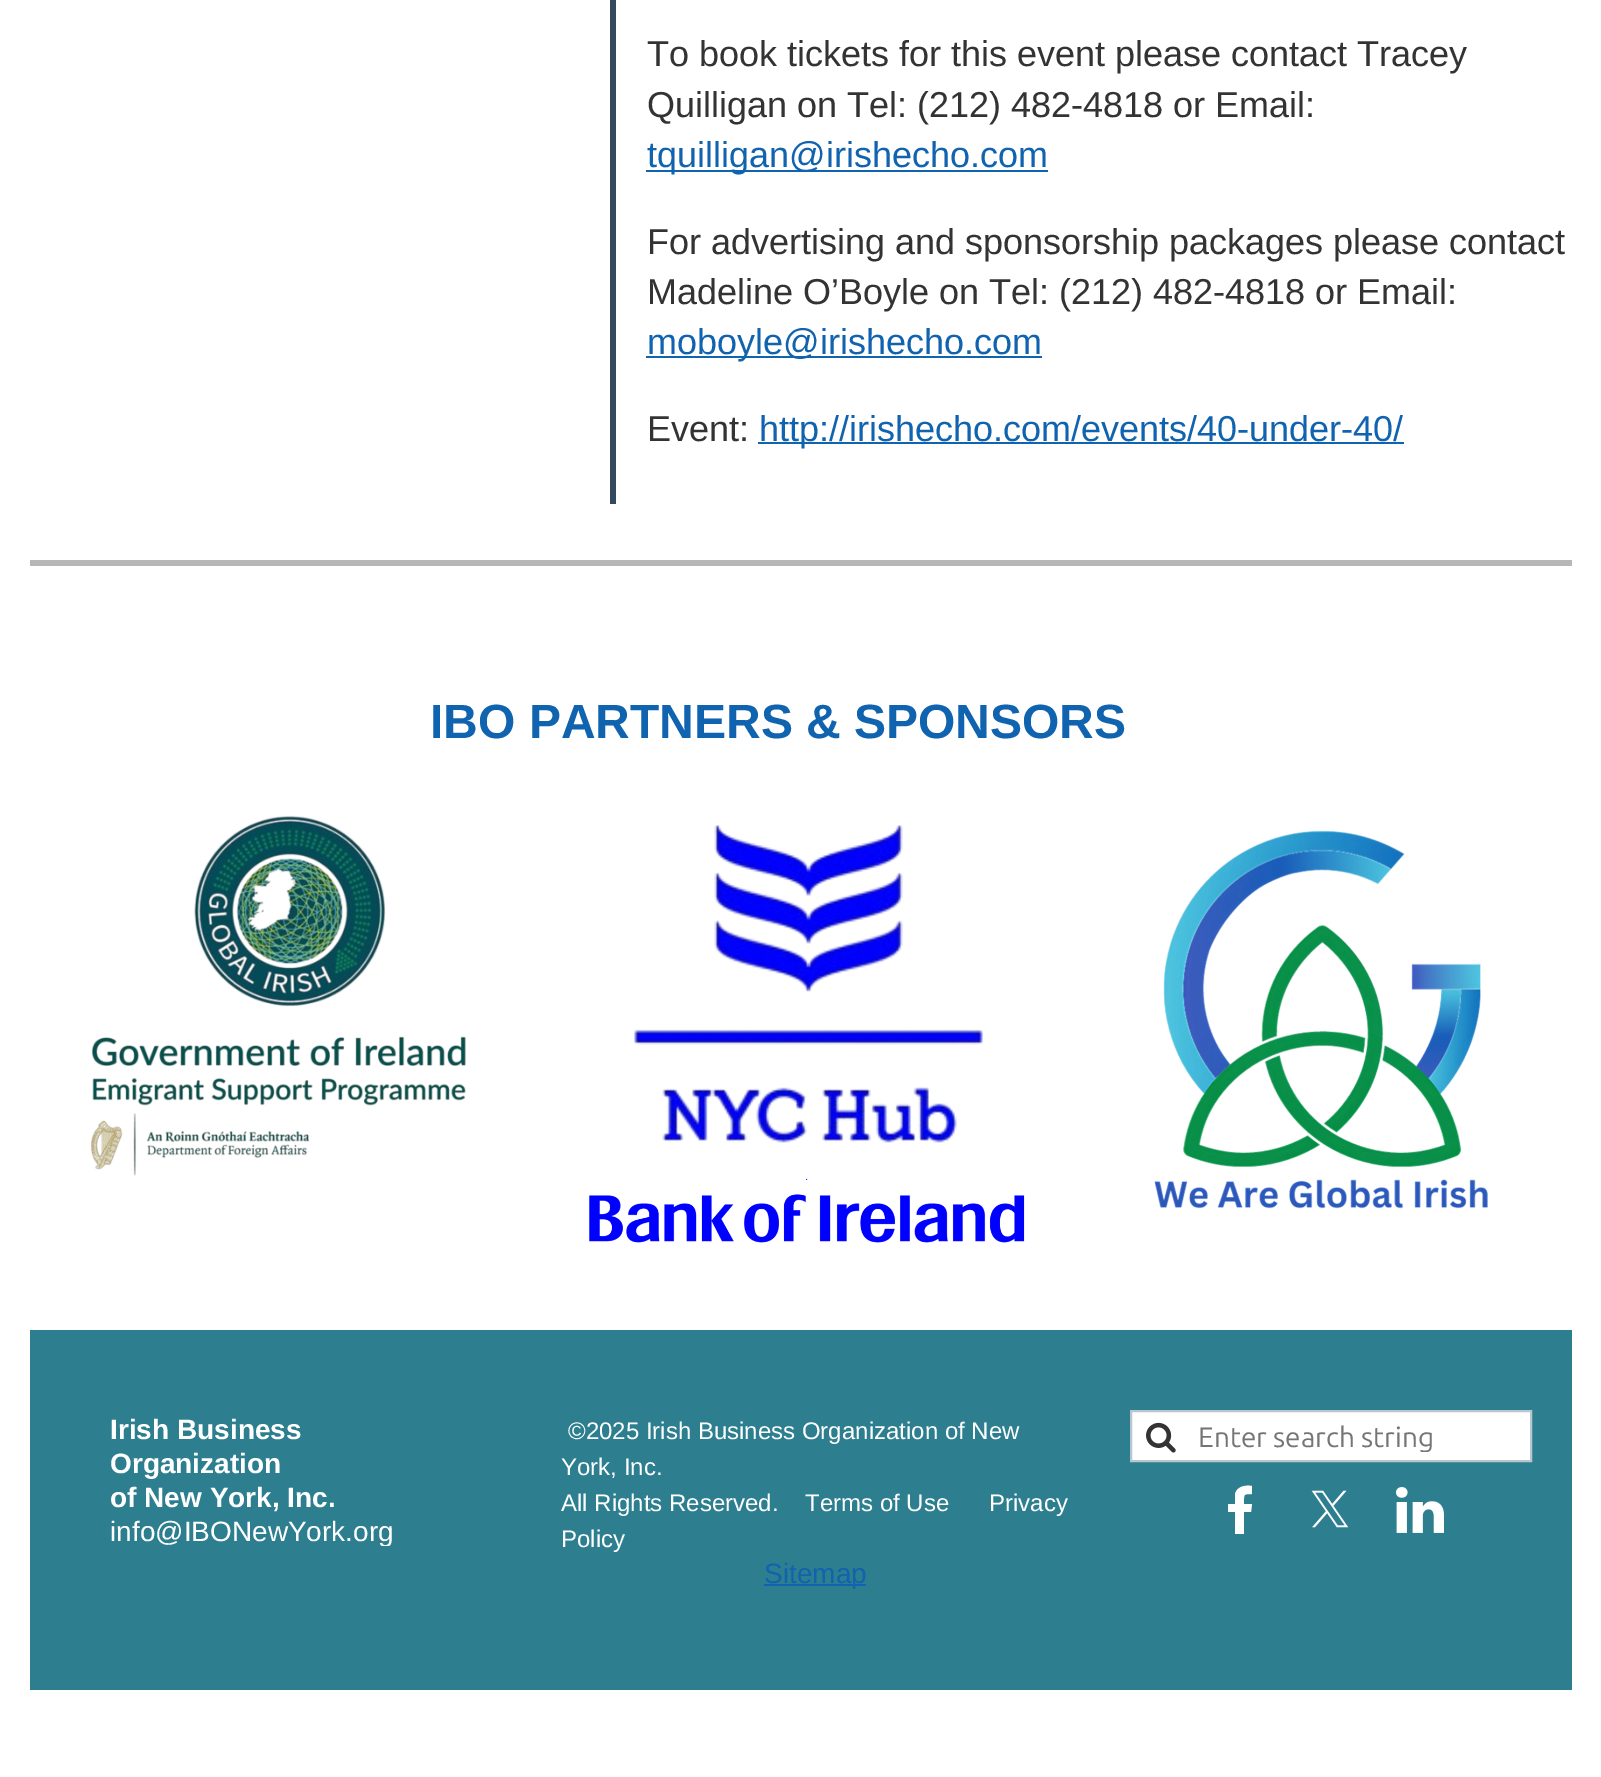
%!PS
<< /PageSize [1601 1777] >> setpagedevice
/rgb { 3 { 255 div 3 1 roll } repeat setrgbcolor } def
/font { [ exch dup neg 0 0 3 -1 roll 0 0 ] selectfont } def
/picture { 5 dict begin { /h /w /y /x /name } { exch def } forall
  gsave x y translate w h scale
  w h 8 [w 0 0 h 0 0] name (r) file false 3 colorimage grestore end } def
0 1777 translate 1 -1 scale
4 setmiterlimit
255 255 255 rgb
0 0 1601 1777 rectfill
[
  [610 0 6 504 52 73 94]
  [646 170 402 2 16 99 175]
  [646 356 396 2 16 99 175]
  [758 442 646 2 16 99 175]
  [30 560 1542 6 183 183 183]
] { aload pop rgb rectfill } forall
(img/1.rgb) 90 815 376 361 picture
(img/2.rgb) 589 825 436 418 picture
(img/3.rgb) 1154 830 334 379 picture
45 127 144 rgb
30 1330 1542 360 rectfill
16 99 175 rgb
764 1584 102 2 rectfill
255 255 255 rgb
1131 1411 moveto 1531 1411 lineto 1531 1461 lineto 1131 1461 lineto closepath gsave fill grestore
184 198 205 rgb
2 setlinewidth
stroke
(img/4.rgb) 1146 1422 30 31 picture
255 255 255 rgb
1252 1494 moveto 1243 1494 1244 1494 1244 1504 curveto 1252 1504 lineto 1251 1512 lineto 1244 1512 lineto 1244 1534 lineto 1235 1534 lineto 1235 1512 lineto 1228 1512 lineto 1228 1504 lineto 1235 1504 lineto 1235 1494 lineto 1237 1486 1246 1485 1252 1486 curveto closepath fill
(img/5.rgb) 1311 1490 38 38 picture
(img/6.rgb) 1396 1487 48 46 picture
/LiberationSans-Regular 36 font
51 51 51 rgb
647 66 moveto (To book tickets for this event please contact Tracey) show
647 117 moveto (Quilligan on Tel: \(212\) 482-4818 or Email:) show
16 99 175 rgb
647 167 moveto (tquilligan@irishecho.com) show
51 51 51 rgb
647 254 moveto (For advertising and sponsorship packages please contact) show
647 304 moveto (Madeline O’Boyle on Tel: \(212\) 482-4818 or Email:) show
16 99 175 rgb
647 354 moveto (moboyle@irishecho.com) show
51 51 51 rgb
647 441 moveto (Event:) show
16 99 175 rgb
759 441 moveto (http://irishecho.com/events/40-under-40/) show
/LiberationSans-Bold 48 font
430 738 moveto (IBO PARTNERS & SPONSORS) show
/LiberationSans-Bold 28 font
255 255 255 rgb
[
  [(Irish Business) 110 1439]
  [(Organization) 110 1473]
  [(of New York, Inc.) 110 1507]
] { aload pop moveto show } forall
gsave
110 1410 350 136 rectclip
/LiberationSans-Regular 28 font
110 1541 moveto (info@IBONewYork.org) show
grestore
/LiberationSans-Regular 24 font
[
  [(©2025 Irish Business Organization of New) 568 1439]
  [(York, Inc.) 561 1475]
  [(All Rights Reserved.    Terms of Use      Privacy) 561 1511]
  [(Policy) 561 1547]
] { aload pop moveto show } forall
/LiberationSans-Regular 28 font
16 99 175 rgb
764 1583 moveto (Sitemap) show
gsave
1198 1420 322 32 rectclip
/Ubuntu-Regular 28 font
117 117 117 rgb
1198 1447 moveto (Enter search string) show
grestore
showpage
